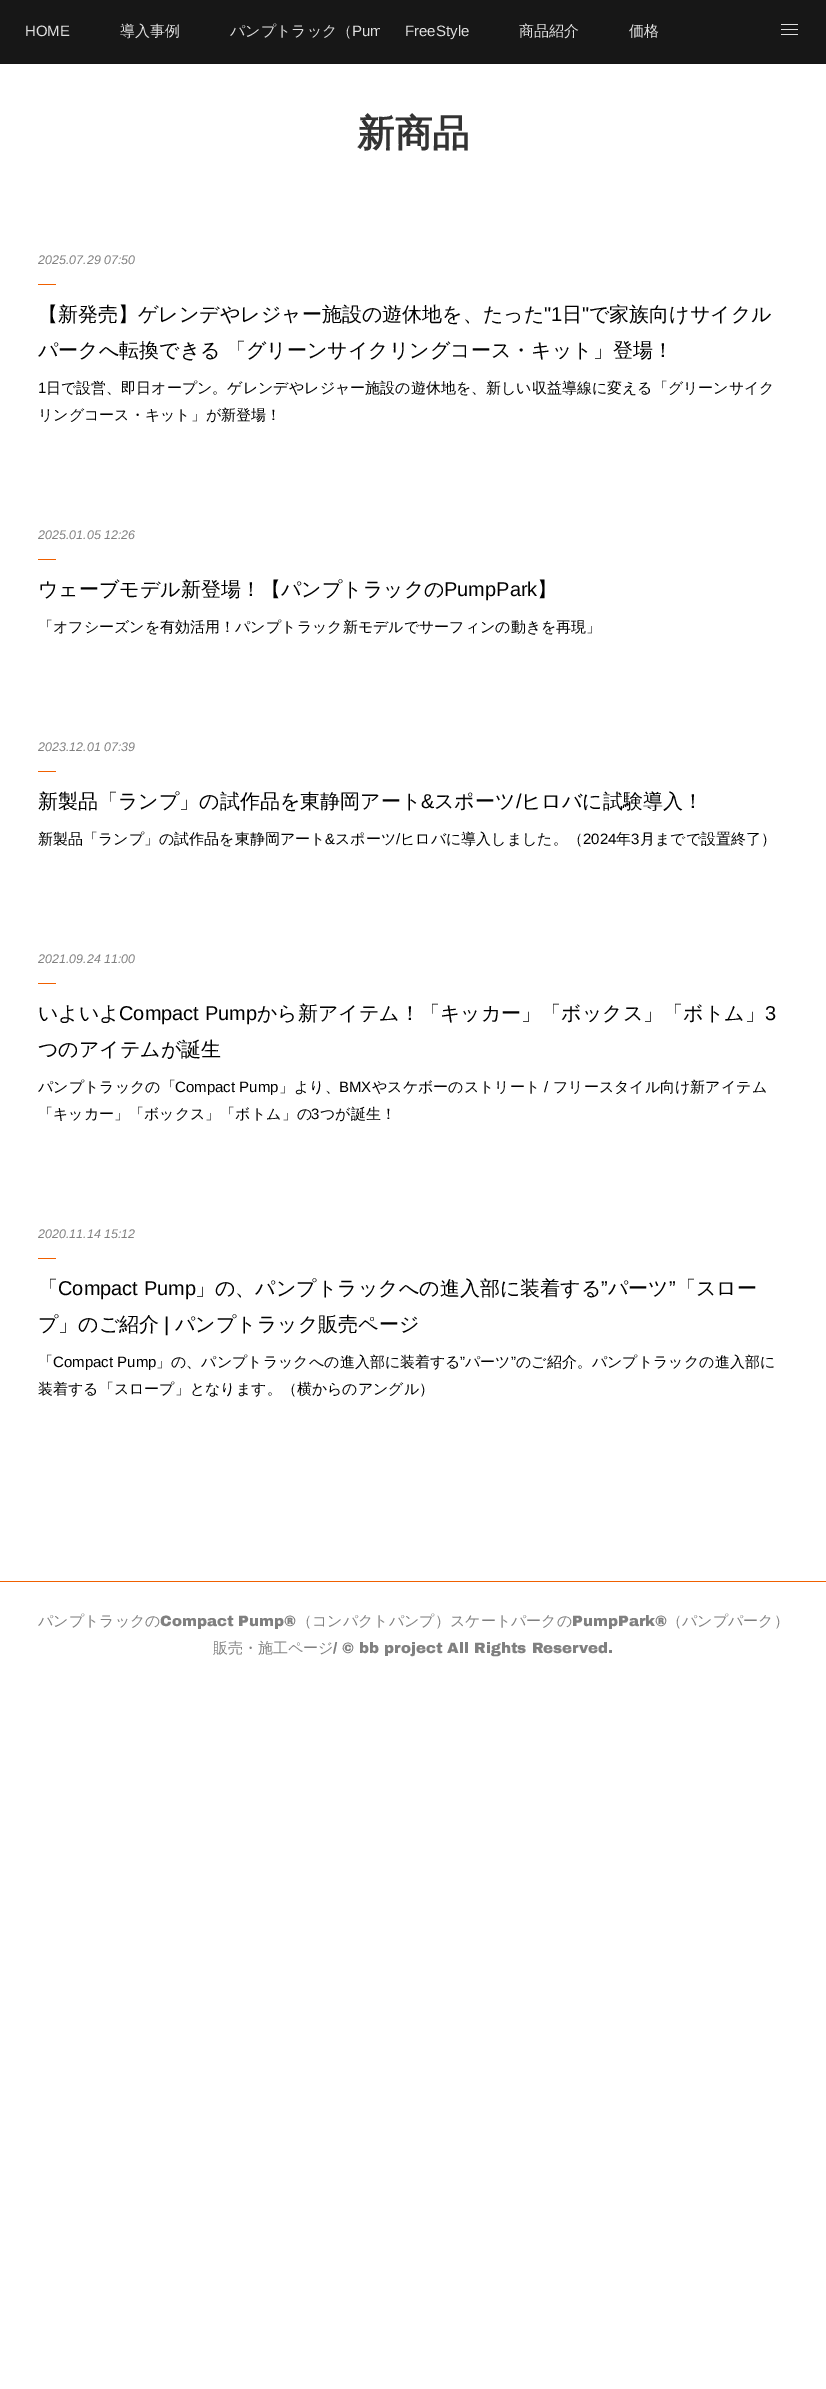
%!PS
<< /PageSize [826 2389] >> setpagedevice
/rgb { 3 { 255 div 3 1 roll } repeat setrgbcolor } def
/font { [ exch dup neg 0 0 3 -1 roll 0 0 ] selectfont } def
0 2389 translate 1 -1 scale
4 setmiterlimit
255 255 255 rgb
0 0 826 2389 rectfill
[
  [0 0 826 63 23 23 23]
  [0 63 826 1 21 21 21]
  [781 24 17 1 224 224 224]
  [781 29 17 1 224 224 224]
  [781 34 17 1 224 224 224]
  [38 284 18 1 240 96 0]
  [38 559 18 1 240 96 0]
  [38 771 18 1 240 96 0]
  [38 983 18 1 240 96 0]
  [38 1258 18 1 240 96 0]
  [0 1581 826 1 240 96 0]
] { aload pop rgb rectfill } forall
/LiberationSans-Regular 15 font
224 224 224 rgb
25 36 moveto (HOME) show
/WenQuanYiZenHei-Medium 15 font
120 36 moveto (導入事例) show
230 36 moveto (パンプトラック（) show
gsave
205 0 175 61 rectclip
/LiberationSans-Regular 15 font
352 36 moveto (Pum) show
grestore
/LiberationSans-Regular 15 font
405 36 moveto (FreeStyle) show
/WenQuanYiZenHei-Medium 15 font
519 36 moveto (商品紹介) show
629 36 moveto (価格) show
/WenQuanYiZenHei-Bold 37.5 font
51 51 51 rgb
357 146 moveto (新商品) show
/LiberationSans-Italic 12.5 font
128 128 128 rgb
38 264 moveto (2025.07.29 07:50) show
/WenQuanYiZenHei-Medium 20 font
0 0 0 rgb
38 321 moveto (【新発売】ゲレンデやレジャー施設の遊休地を、たった) show
/LiberationSans-Regular 20 font
544 321 moveto ("1) show
/WenQuanYiZenHei-Medium 20 font
562 321 moveto (日) show
/LiberationSans-Regular 20 font
582 321 moveto (") show
/WenQuanYiZenHei-Medium 20 font
[
  [(で家族向けサイクル) 589 321]
  [(パークへ転換できる) 38 357]
  [(「グリーンサイクリングコース・キット」登場！) 226 357]
] { aload pop moveto show } forall
/LiberationSans-Regular 15 font
38 393 moveto (1) show
/WenQuanYiZenHei-Medium 15 font
46 393 moveto (日で設営、即日オープン。ゲレンデやレジャー施設の遊休地を、新しい収益導線に変える「グリーンサイク) show
38 420 moveto (リングコース・キット」が新登場！) show
/LiberationSans-Italic 12.5 font
128 128 128 rgb
38 539 moveto (2025.01.05 12:26) show
/WenQuanYiZenHei-Medium 20 font
0 0 0 rgb
38 596 moveto (ウェーブモデル新登場！【パンプトラックの) show
/LiberationSans-Regular 20 font
444 596 moveto (PumpPark) show
/WenQuanYiZenHei-Medium 20 font
537 596 moveto (】) show
/WenQuanYiZenHei-Medium 15 font
38 632 moveto (「オフシーズンを有効活用！パンプトラック新モデルでサーフィンの動きを再現」) show
/LiberationSans-Italic 12.5 font
128 128 128 rgb
38 751 moveto (2023.12.01 07:39) show
/WenQuanYiZenHei-Medium 20 font
0 0 0 rgb
38 808 moveto (新製品「ランプ」の試作品を東静岡アート) show
/LiberationSans-Regular 20 font
421 808 moveto (&) show
/WenQuanYiZenHei-Medium 20 font
434 808 moveto (スポーツ) show
/LiberationSans-Regular 20 font
516 808 moveto (/) show
/WenQuanYiZenHei-Medium 20 font
521 808 moveto (ヒロバに試験導入！) show
/WenQuanYiZenHei-Medium 15 font
38 844 moveto (新製品「ランプ」の試作品を東静岡アート) show
/LiberationSans-Regular 15 font
325 844 moveto (&) show
/WenQuanYiZenHei-Medium 15 font
335 844 moveto (スポーツ) show
/LiberationSans-Regular 15 font
396 844 moveto (/) show
/WenQuanYiZenHei-Medium 15 font
400 844 moveto (ヒロバに導入しました。（) show
/LiberationSans-Regular 15 font
583 844 moveto (2024) show
/WenQuanYiZenHei-Medium 15 font
616 844 moveto (年) show
/LiberationSans-Regular 15 font
631 844 moveto (3) show
/WenQuanYiZenHei-Medium 15 font
640 844 moveto (月までで設置終了）) show
/LiberationSans-Italic 12.5 font
128 128 128 rgb
38 963 moveto (2021.09.24 11:00) show
/WenQuanYiZenHei-Medium 20 font
0 0 0 rgb
38 1020 moveto (いよいよ) show
/LiberationSans-Regular 20 font
119 1020 moveto (Compact Pump) show
/WenQuanYiZenHei-Medium 20 font
257 1020 moveto (から新アイテム！「キッカー」「ボックス」「ボトム」) show
/LiberationSans-Regular 20 font
765 1020 moveto (3) show
/WenQuanYiZenHei-Medium 20 font
38 1056 moveto (つのアイテムが誕生) show
/WenQuanYiZenHei-Medium 15 font
38 1092 moveto (パンプトラックの「) show
/LiberationSans-Regular 15 font
175 1092 moveto (Compact Pump) show
/WenQuanYiZenHei-Medium 15 font
279 1092 moveto (」より、) show
/LiberationSans-Regular 15 font
339 1092 moveto (BMX) show
/WenQuanYiZenHei-Medium 15 font
372 1092 moveto (やスケボーのストリート) show
/LiberationSans-Regular 15 font
544 1092 moveto (/) show
/WenQuanYiZenHei-Medium 15 font
553 1092 moveto (フリースタイル向け新アイテム) show
38 1119 moveto (「キッカー」「ボックス」「ボトム」の) show
/LiberationSans-Regular 15 font
311 1119 moveto (3) show
/WenQuanYiZenHei-Medium 15 font
320 1119 moveto (つが誕生！) show
/LiberationSans-Italic 12.5 font
128 128 128 rgb
38 1238 moveto (2020.11.14 15:12) show
/WenQuanYiZenHei-Medium 20 font
0 0 0 rgb
38 1295 moveto (「) show
/LiberationSans-Regular 20 font
58 1295 moveto (Compact Pump) show
/WenQuanYiZenHei-Medium 20 font
195 1295 moveto (」の、パンプトラックへの進入部に装着する) show
/LiberationSans-Regular 20 font
601 1295 moveto (”) show
/WenQuanYiZenHei-Medium 20 font
608 1295 moveto (パーツ) show
/LiberationSans-Regular 20 font
669 1295 moveto (”) show
/WenQuanYiZenHei-Medium 20 font
676 1295 moveto (「スロー) show
38 1331 moveto (プ」のご紹介) show
/LiberationSans-Regular 20 font
164 1331 moveto (|) show
/WenQuanYiZenHei-Medium 20 font
175 1331 moveto (パンプトラック販売ページ) show
/WenQuanYiZenHei-Medium 15 font
38 1367 moveto (「) show
/LiberationSans-Regular 15 font
53 1367 moveto (Compact Pump) show
/WenQuanYiZenHei-Medium 15 font
156 1367 moveto (」の、パンプトラックへの進入部に装着する) show
/LiberationSans-Regular 15 font
460 1367 moveto (”) show
/WenQuanYiZenHei-Medium 15 font
465 1367 moveto (パーツ) show
/LiberationSans-Regular 15 font
511 1367 moveto (”) show
/WenQuanYiZenHei-Medium 15 font
516 1367 moveto (のご紹介。パンプトラックの進入部に) show
38 1394 moveto (装着する「スロープ」となります。（横からのアングル）) show
128 128 128 rgb
38 1626 moveto (パンプトラックの) show
/ArchivoBlack-Black 15 font
160 1626 moveto (Compact Pump®) show
/WenQuanYiZenHei-Medium 15 font
297 1626 moveto (（コンパクトパンプ）スケートパークの) show
/ArchivoBlack-Black 15 font
572 1626 moveto (PumpPark®) show
/WenQuanYiZenHei-Medium 15 font
667 1626 moveto (（パンプパーク）) show
213 1653 moveto (販売・施工ページ) show
/ArchivoBlack-Black 15 font
333 1653 moveto (/ © bb project All Rights Reserved.) show
showpage
